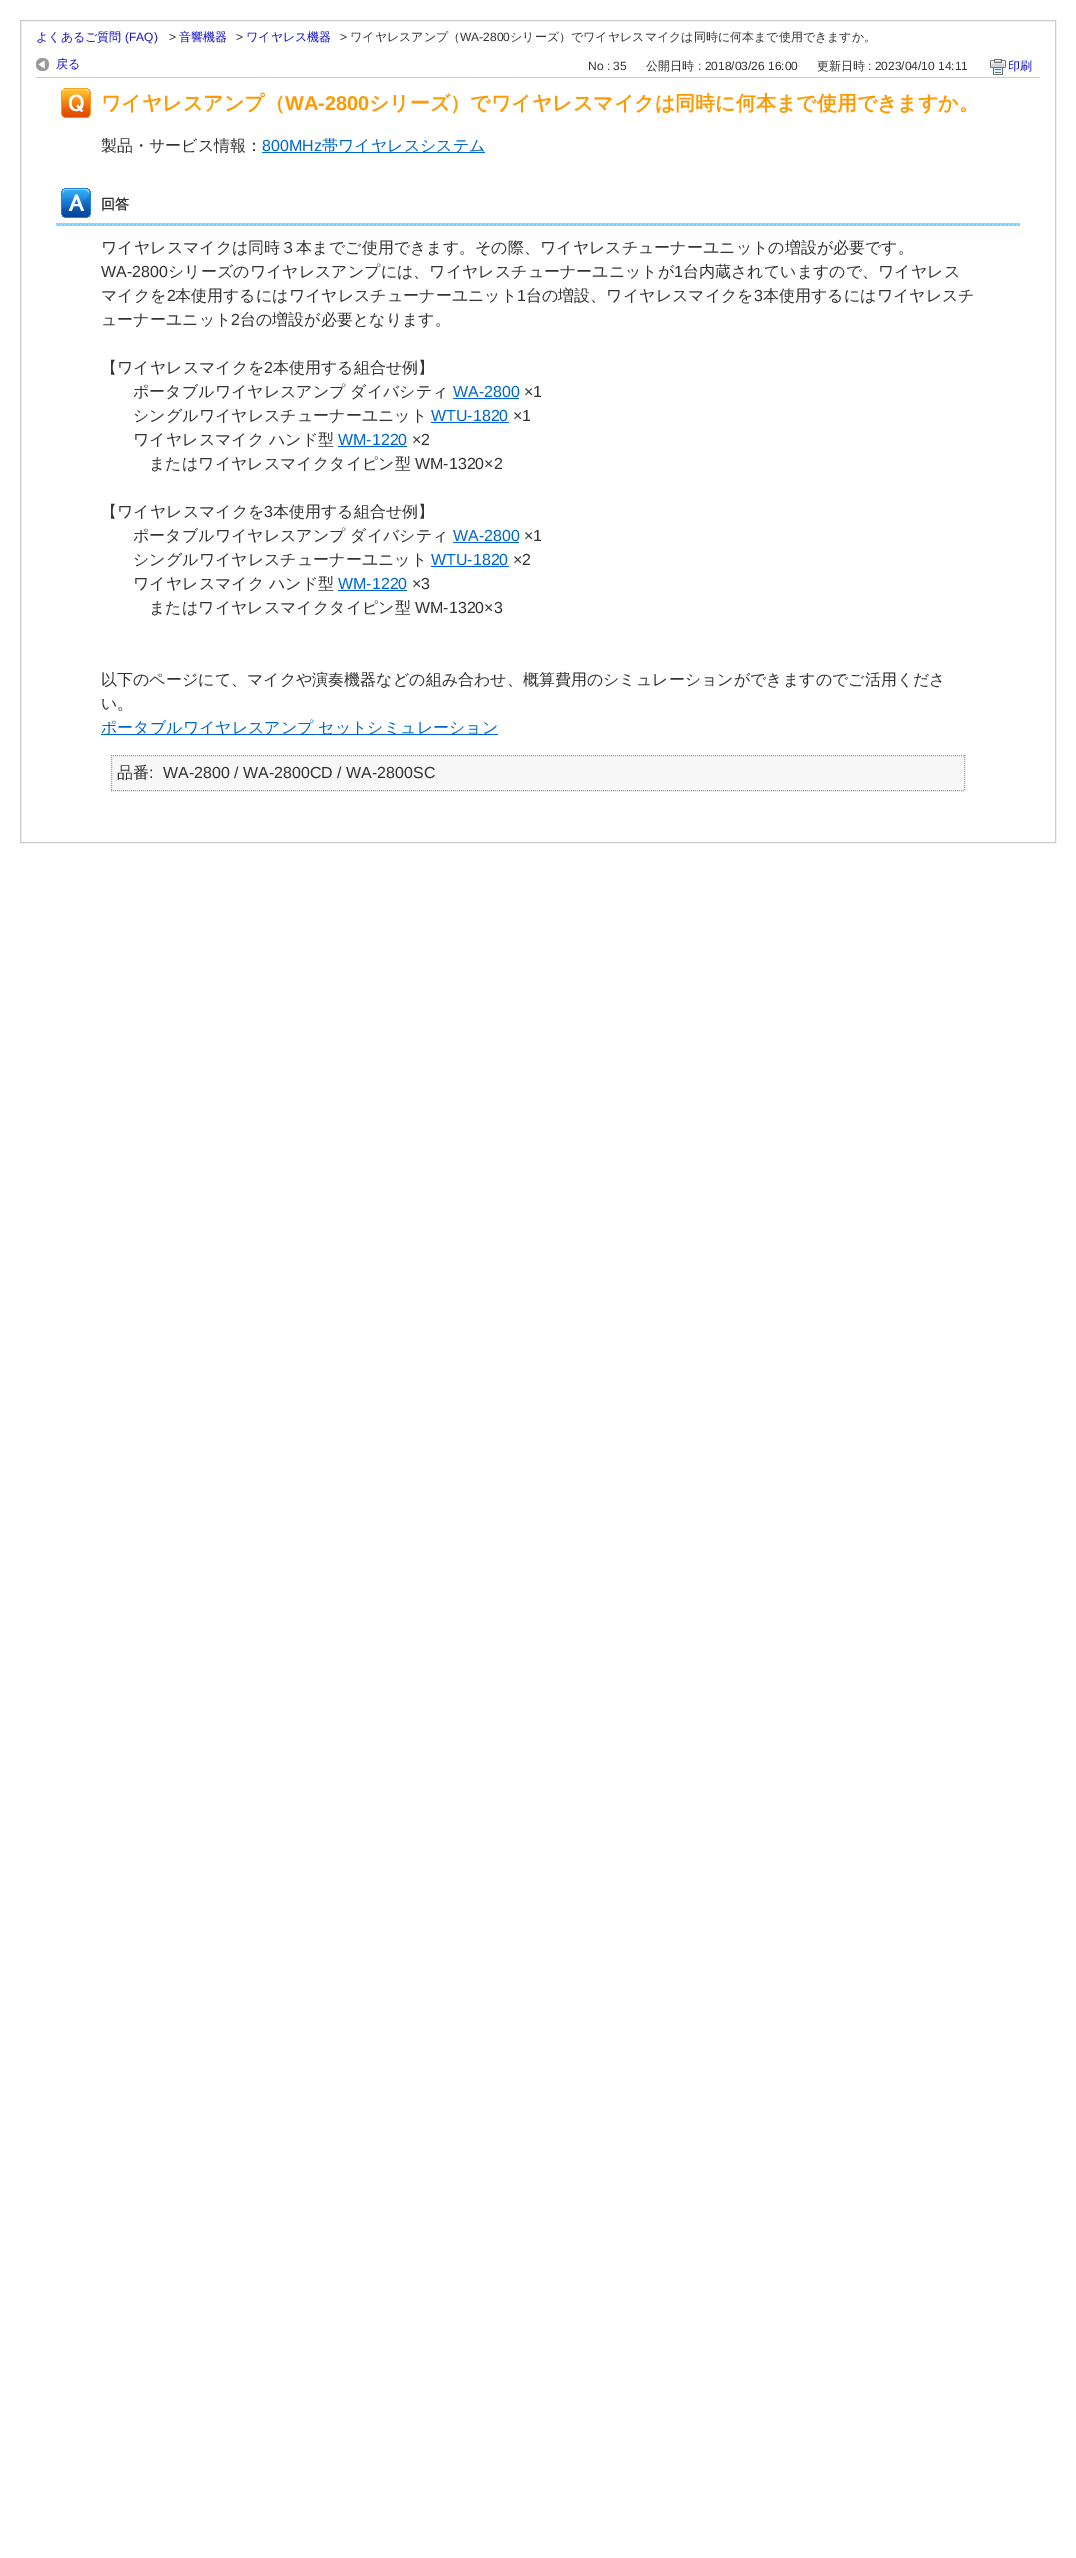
%!PS
<< /PageSize [1076 2558] >> setpagedevice
/rgb { 3 { 255 div 3 1 roll } repeat setrgbcolor } def
/font { [ exch dup neg 0 0 3 -1 roll 0 0 ] selectfont } def
/picture { 5 dict begin { /h /w /y /x /name } { exch def } forall
  gsave x y translate w h scale
  w h 8 [w 0 0 h 0 0] name (r) file false 3 colorimage grestore end } def
0 2558 translate 1 -1 scale
4 setmiterlimit
255 255 255 rgb
0 0 1076 2558 rectfill
204 204 204 rgb
20.5 20.5 1035 822 rectstroke
36 77 1004 1 rectfill
(img/1.rgb) 36 58 13 13 picture
(img/2.rgb) 990 59 16 16 picture
(img/3.rgb) 61 88 30 30 picture
0 102 204 rgb
262 152 223 1 rectfill
(img/4.rgb) 56 223 964 3 picture
(img/5.rgb) 61 188 30 30 picture
[
  [453 398 66 1 0 102 204]
  [431 422 78 1 0 102 204]
  [338 446 69 1 0 102 204]
  [453 542 66 1 0 102 204]
  [431 566 78 1 0 102 204]
  [338 590 69 1 0 102 204]
  [101 734 397 1 0 102 204]
  [111 755 854 36 247 247 247]
] { aload pop rgb rectfill } forall
153 153 153 rgb
[1 1] 0 setdash
111 755.5 moveto 965 755.5 lineto stroke
964.5 755 moveto 964.5 791 lineto stroke
111 790.5 moveto 965 790.5 lineto stroke
111.5 755 moveto 111.5 791 lineto stroke
/WenQuanYiZenHei-Medium 12 font
17 17 204 rgb
36 41 moveto (よくあるご質問) show
/LiberationSans-Regular 12 font
125 41 moveto (\(FAQ\)) show
51 51 51 rgb
169 41 moveto (>) show
/WenQuanYiZenHei-Medium 12 font
17 17 204 rgb
179 41 moveto (音響機器) show
/LiberationSans-Regular 12 font
51 51 51 rgb
236 41 moveto (>) show
/WenQuanYiZenHei-Medium 12 font
17 17 204 rgb
246 41 moveto (ワイヤレス機器) show
/LiberationSans-Regular 12 font
51 51 51 rgb
340 41 moveto (>) show
/WenQuanYiZenHei-Medium 12 font
350 41 moveto (ワイヤレスアンプ（) show
/LiberationSans-Regular 12 font
460 41 moveto (WA-2800) show
/WenQuanYiZenHei-Medium 12 font
510 41 moveto (シリーズ）でワイヤレスマイクは同時に何本まで使用できますか。) show
17 17 204 rgb
56 68 moveto (戻る) show
/LiberationSans-Regular 12 font
51 51 51 rgb
588 70 moveto (No : 35) show
/WenQuanYiZenHei-Medium 12 font
646 70 moveto (公開日時) show
/LiberationSans-Regular 12 font
698 70 moveto (: 2018/03/26 16:00) show
/WenQuanYiZenHei-Medium 12 font
817 70 moveto (更新日時) show
/LiberationSans-Regular 12 font
868 70 moveto (: 2023/04/10 14:11) show
/WenQuanYiZenHei-Medium 12 font
17 17 204 rgb
1008 70 moveto (印刷) show
/WenQuanYiZenHei-Bold 20 font
255 153 0 rgb
101 110 moveto (ワイヤレスアンプ（) show
/LiberationSans-Bold 20 font
285 110 moveto (WA-2800) show
/WenQuanYiZenHei-Bold 20 font
369 110 moveto (シリーズ）でワイヤレスマイクは同時に何本まで使用できますか。) show
/WenQuanYiZenHei-Medium 16 font
51 51 51 rgb
101 151 moveto (製品・サービス情報：) show
/LiberationSans-Regular 16 font
0 102 204 rgb
262 151 moveto (800MHz) show
/WenQuanYiZenHei-Medium 16 font
322 151 moveto (帯ワイヤレスシステム) show
/WenQuanYiZenHei-Bold 14 font
51 51 51 rgb
101 209 moveto (回答) show
/WenQuanYiZenHei-Medium 16 font
101 253 moveto (ワイヤレスマイクは同時３本までご使用できます。その際、ワイヤレスチューナーユニットの増設が必要です。) show
/LiberationSans-Regular 16 font
101 277 moveto (WA-2800) show
/WenQuanYiZenHei-Medium 16 font
168 277 moveto (シリーズのワイヤレスアンプには、ワイヤレスチューナーユニットが) show
/LiberationSans-Regular 16 font
674 277 moveto (1) show
/WenQuanYiZenHei-Medium 16 font
683 277 moveto (台内蔵されていますので、ワイヤレス) show
101 301 moveto (マイクを) show
/LiberationSans-Regular 16 font
167 301 moveto (2) show
/WenQuanYiZenHei-Medium 16 font
175 301 moveto (本使用するにはワイヤレスチューナーユニット) show
/LiberationSans-Regular 16 font
517 301 moveto (1) show
/WenQuanYiZenHei-Medium 16 font
526 301 moveto (台の増設、ワイヤレスマイクを) show
/LiberationSans-Regular 16 font
754 301 moveto (3) show
/WenQuanYiZenHei-Medium 16 font
763 301 moveto (本使用するにはワイヤレスチ) show
101 325 moveto (ューナーユニット) show
/LiberationSans-Regular 16 font
231 325 moveto (2) show
/WenQuanYiZenHei-Medium 16 font
240 325 moveto (台の増設が必要となります。) show
101 373 moveto (【ワイヤレスマイクを) show
/LiberationSans-Regular 16 font
264 373 moveto (2) show
/WenQuanYiZenHei-Medium 16 font
273 373 moveto (本使用する組合せ例】) show
133 397 moveto (ポータブルワイヤレスアンプ ダイバシティ) show
/LiberationSans-Regular 16 font
0 102 204 rgb
453 397 moveto (WA-2800) show
51 51 51 rgb
524 397 moveto (×1) show
/WenQuanYiZenHei-Medium 16 font
133 421 moveto (シングルワイヤレスチューナーユニット) show
/LiberationSans-Regular 16 font
0 102 204 rgb
431 421 moveto (WTU-1820) show
51 51 51 rgb
513 421 moveto (×1) show
/WenQuanYiZenHei-Medium 16 font
133 445 moveto (ワイヤレスマイク ハンド型) show
/LiberationSans-Regular 16 font
0 102 204 rgb
338 445 moveto (WM-1220) show
51 51 51 rgb
412 445 moveto (×2) show
/WenQuanYiZenHei-Medium 16 font
149 469 moveto (またはワイヤレスマイクタイピン型) show
/LiberationSans-Regular 16 font
415 469 moveto (WM-1320×2) show
/WenQuanYiZenHei-Medium 16 font
101 517 moveto (【ワイヤレスマイクを) show
/LiberationSans-Regular 16 font
264 517 moveto (3) show
/WenQuanYiZenHei-Medium 16 font
273 517 moveto (本使用する組合せ例】) show
133 541 moveto (ポータブルワイヤレスアンプ ダイバシティ) show
/LiberationSans-Regular 16 font
0 102 204 rgb
453 541 moveto (WA-2800) show
51 51 51 rgb
524 541 moveto (×1) show
/WenQuanYiZenHei-Medium 16 font
133 565 moveto (シングルワイヤレスチューナーユニット) show
/LiberationSans-Regular 16 font
0 102 204 rgb
431 565 moveto (WTU-1820) show
51 51 51 rgb
513 565 moveto (×2) show
/WenQuanYiZenHei-Medium 16 font
133 589 moveto (ワイヤレスマイク ハンド型) show
/LiberationSans-Regular 16 font
0 102 204 rgb
338 589 moveto (WM-1220) show
51 51 51 rgb
412 589 moveto (×3) show
/WenQuanYiZenHei-Medium 16 font
149 613 moveto (またはワイヤレスマイクタイピン型) show
/LiberationSans-Regular 16 font
415 613 moveto (WM-1320×3) show
/WenQuanYiZenHei-Medium 16 font
101 685 moveto (以下のページにて、マイクや演奏機器などの組み合わせ、概算費用のシミュレーションができますのでご活用くださ) show
101 709 moveto (い。) show
0 102 204 rgb
101 733 moveto (ポータブルワイヤレスアンプ セットシミュレーション) show
51 51 51 rgb
117 778 moveto (品番) show
/LiberationSans-Regular 16 font
149 778 moveto (:) show
163 778 moveto (WA-2800 / WA-2800CD / WA-2800SC) show
showpage
